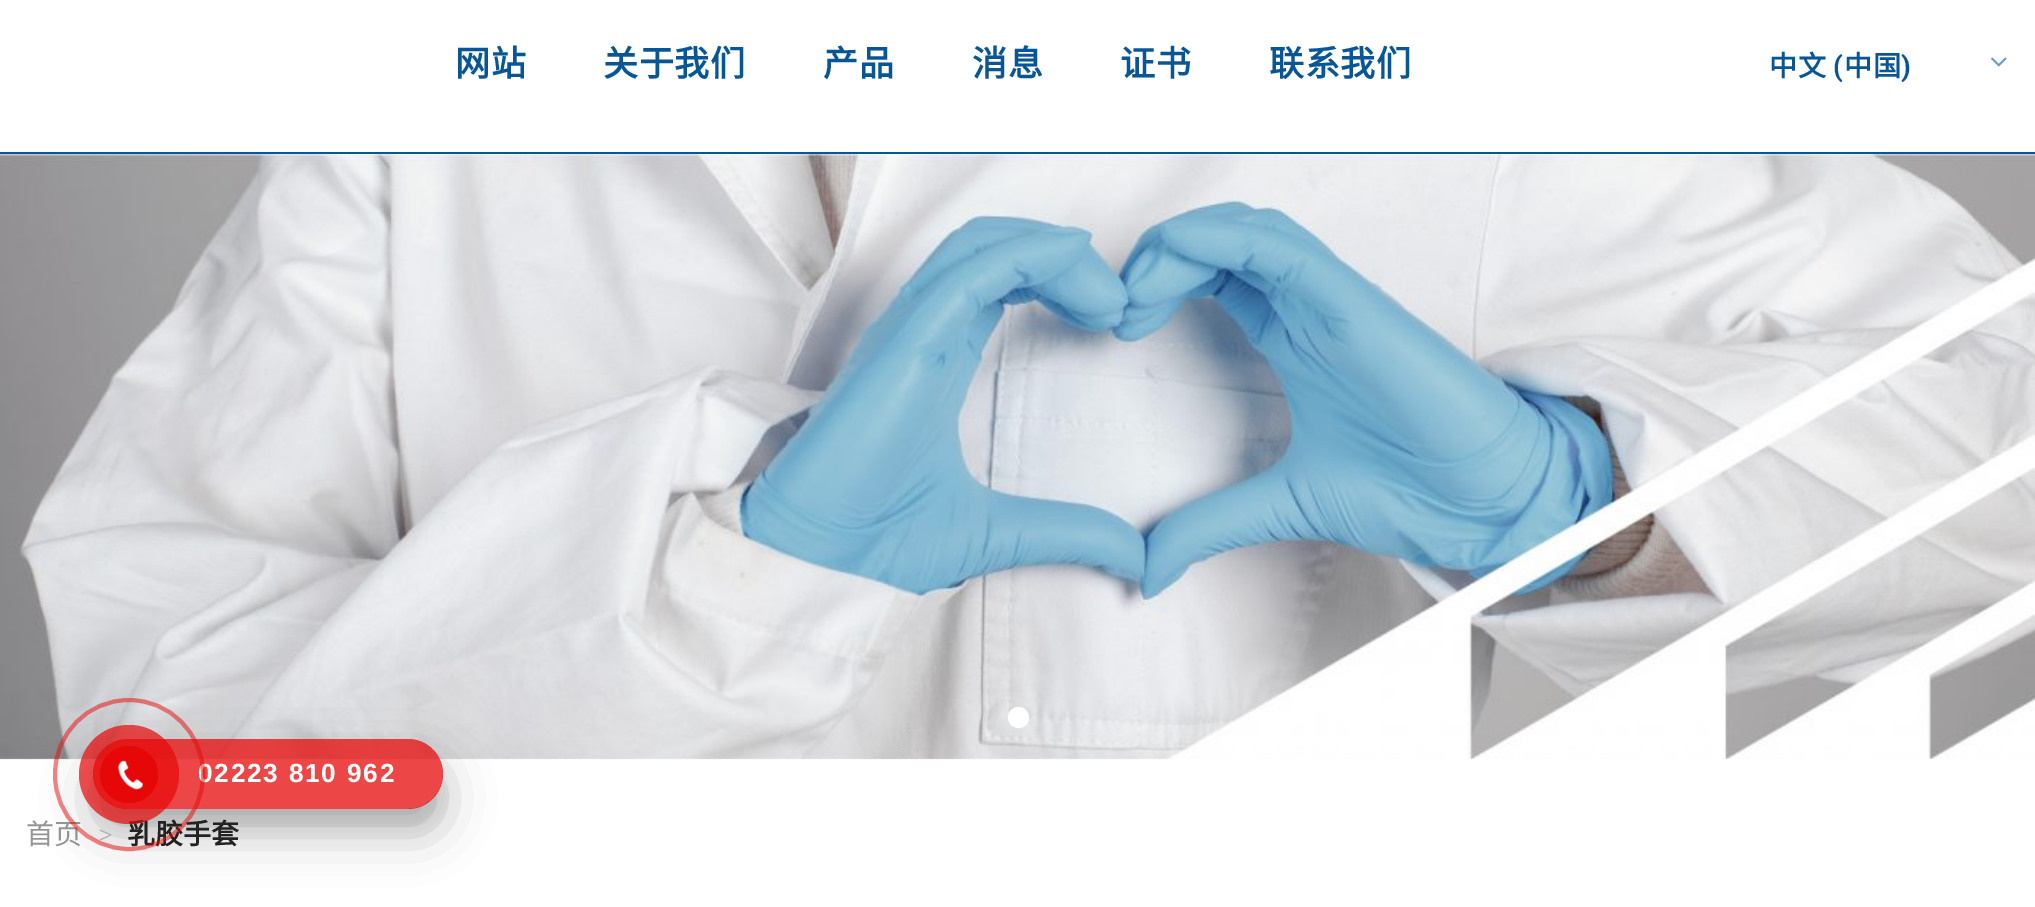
%!PS
<< /PageSize [2035 907] /PageUsesTransparency true >> setpagedevice
/rgb { 3 { 255 div 3 1 roll } repeat setrgbcolor } def
/font { [ exch dup neg 0 0 3 -1 roll 0 0 ] selectfont } def
/alpha { dup .setfillconstantalpha .setstrokeconstantalpha } def
/circle { newpath 0 360 arc closepath } def
/roundrect { 5 dict begin { /r /h /w /y /x } { exch def } forall
  x r add y moveto x w add y 2 copy h add r arct x w add y h add x 1 index r arct
  x y h add x y r arct x y 2 copy exch w add exch r arct closepath end } def
/shadow { 12 dict begin { /a /b /q /h /w /y /x } { exch def } forall gsave /was 0 def
  9 -2 -9 { dup b mul 4 div /e exch def 1 sub .425 mul 2.718 exch exp 1 add a .99 .min exch div /now exch def
    1 1 now sub 1 was sub div sub alpha /was now def
    w h .min e 2 mul add 0 gt { x e sub y e sub w e 2 mul add h e 2 mul add
      q e add b .6 mul add w h .min 2 div e add .min 0 .max roundrect fill } if } for grestore end } def
/picture { 5 dict begin { /h /w /y /x /name } { exch def } forall
  gsave x y translate w h scale
  w h 8 [w 0 0 h 0 0] name (r) file false 3 colorimage grestore end } def
0 .pushpdf14devicefilter
0 907 translate 1 -1 scale
4 setmiterlimit
255 255 255 rgb
0 0 2035 907 rectfill
8 86 149 rgb
0 152 2035 2 rectfill
(img/1.rgb) 1991 57 16 10 picture
(img/2.rgb) 0 154 2035 606 picture
255 255 255 rgb
1018.5 717.5 8 circle gsave fill grestore
5 setlinewidth
stroke
gsave
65 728 moveto 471 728 lineto 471 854 lineto 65 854 lineto closepath 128 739 moveto 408 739 lineto 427.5 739 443 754.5 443 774 curveto 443 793.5 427.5 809 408 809 curveto 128 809 lineto 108.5 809 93 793.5 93 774 curveto 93 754.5 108.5 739 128 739 curveto closepath eoclip newpath
0 0 0 rgb
93 756 350 70 35 9 0.1 shadow
grestore
gsave
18 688 moveto 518 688 lineto 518 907 lineto 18 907 lineto closepath 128 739 moveto 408 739 lineto 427.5 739 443 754.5 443 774 curveto 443 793.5 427.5 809 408 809 curveto 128 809 lineto 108.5 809 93 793.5 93 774 curveto 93 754.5 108.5 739 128 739 curveto closepath eoclip newpath
0 0 0 rgb
93 763 350 70 35 24.5 0.25 shadow
grestore
0.75 alpha
230 8 8 rgb
93 739 350 70 35 roundrect fill
/NotoSansCJKSC-Bold 35 font
1 alpha
8 86 149 rgb
455 76 moveto 0.5 0 (网站) ashow
603 76 moveto 0.5 0 (关于我们) ashow
823 76 moveto 0.5 0 (产品) ashow
972 76 moveto 0.5 0 (消息) ashow
1120 76 moveto 0.5 0 (证书) ashow
1269 76 moveto 0.5 0 (联系我们) ashow
/NotoSansCJKSC-Bold 28 font
1769 76 moveto 1 0 (中文) ashow
/Roboto-Bold 28 font
1833 76 moveto 1 0 (\() ashow
/NotoSansCJKSC-Bold 28 font
1844 76 moveto 1 0 (中国) ashow
/Roboto-Bold 28 font
1901 76 moveto 1 0 (\)) ashow
/NotoSansCJKSC-Regular 28 font
148 148 148 rgb
26 844 moveto (首页) show
/Roboto-Light 28 font
178 178 178 rgb
98 844 moveto (>) show
/NotoSansCJKSC-Bold 28 font
34 34 34 rgb
127 844 moveto (乳胶手套) show
/LiberationSans-Bold 26.25 font
255 255 255 rgb
198 782 moveto 1.75 0 (02223 810 962) ashow
0.5 alpha
230 8 8 rgb
4 setlinewidth
55 700 148 149 74 roundrect stroke
0.7 alpha
79 725 100 99 49.5 roundrect fill
1 alpha
100 746 58 57 28.5 roundrect fill
(img/3.rgb) 118 760 25 30 picture
.poppdf14devicefilter showpage
